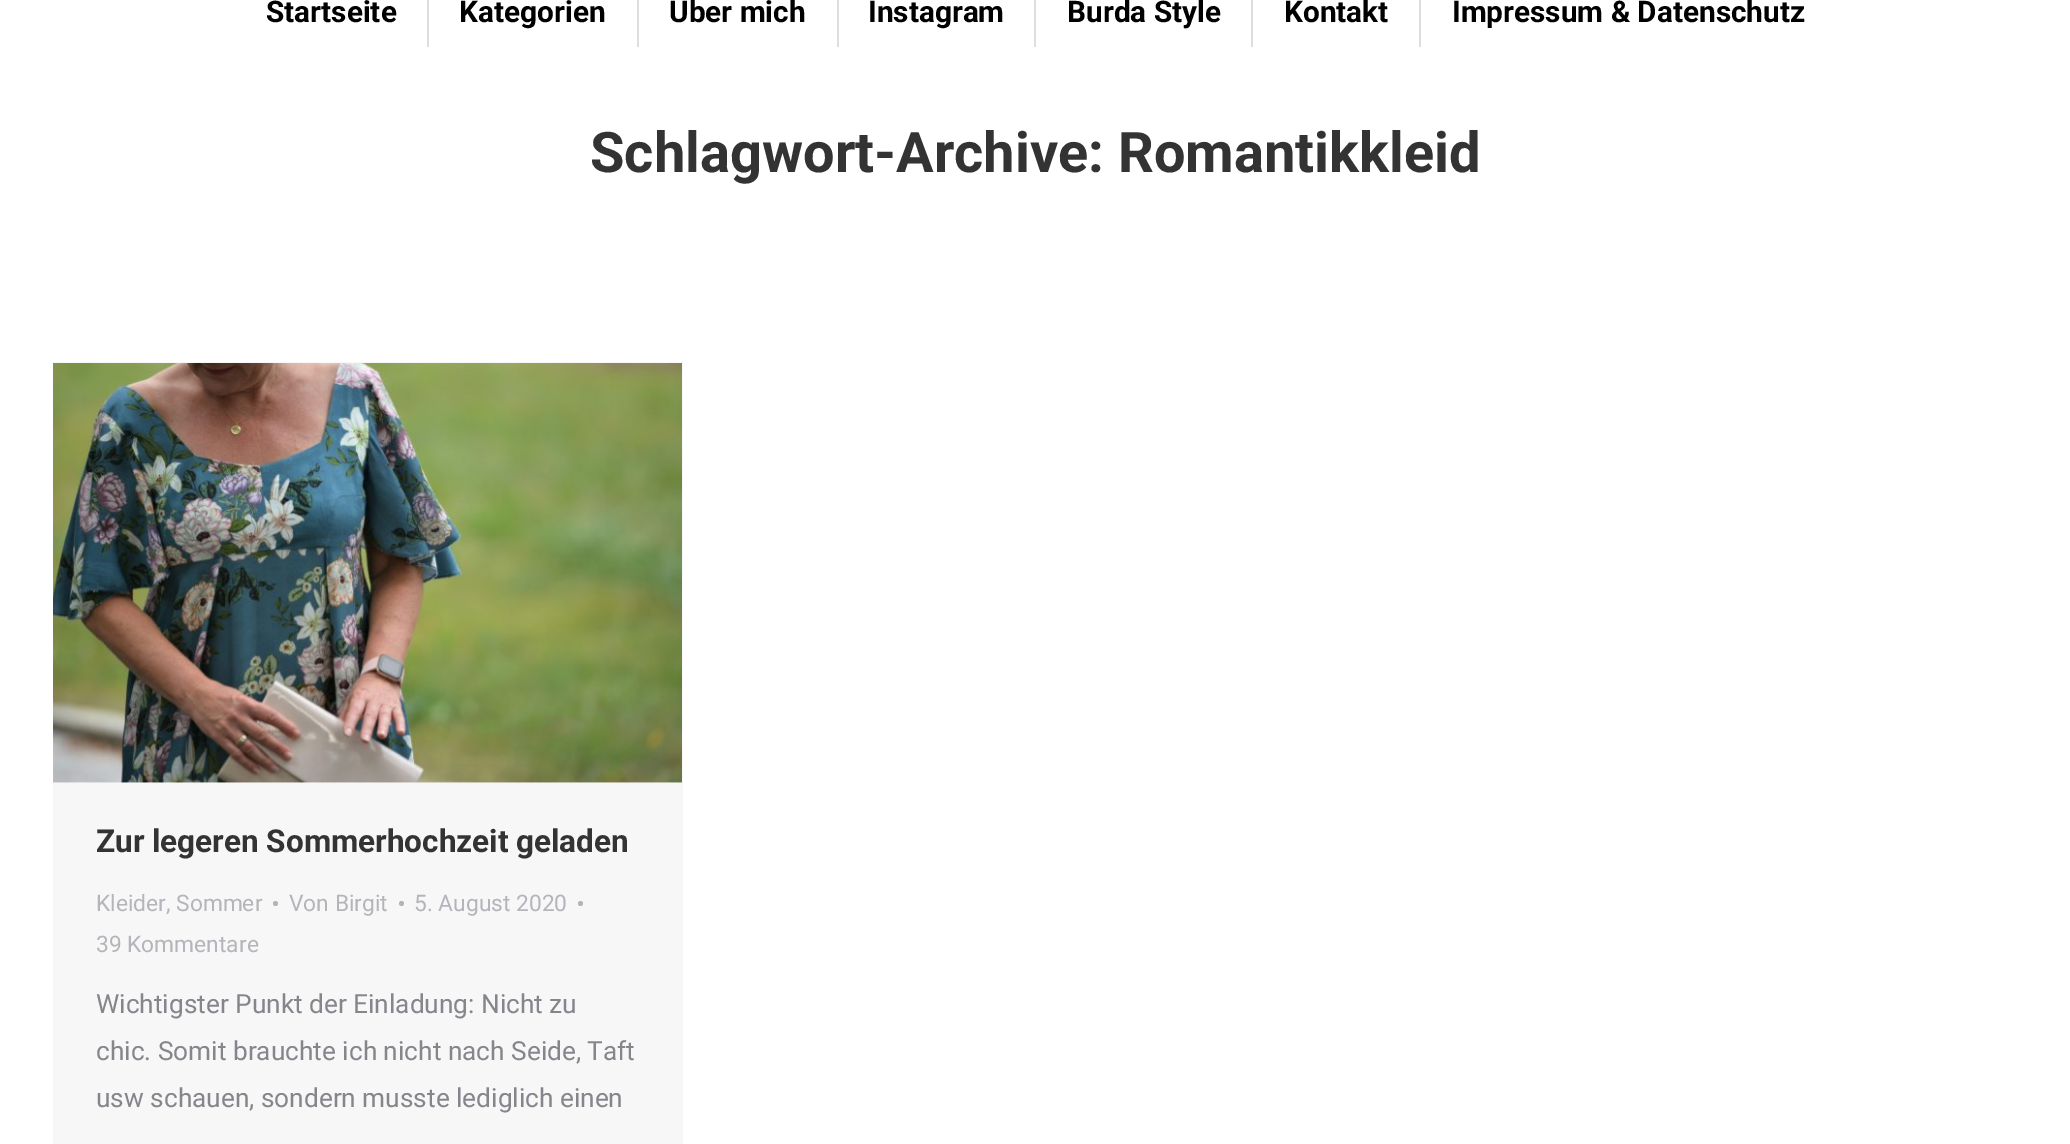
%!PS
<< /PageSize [2070 1144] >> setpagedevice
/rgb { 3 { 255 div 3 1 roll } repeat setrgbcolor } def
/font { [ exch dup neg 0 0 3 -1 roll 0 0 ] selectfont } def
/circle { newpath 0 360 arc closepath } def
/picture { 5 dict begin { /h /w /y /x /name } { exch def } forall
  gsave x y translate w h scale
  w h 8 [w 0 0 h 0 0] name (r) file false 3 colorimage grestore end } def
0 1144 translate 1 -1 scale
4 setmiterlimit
255 255 255 rgb
0 0 2070 1144 rectfill
[
  [427 0 2 47 222 222 222]
  [637 0 2 47 222 222 222]
  [837 0 2 47 222 222 222]
  [1034 0 2 47 222 222 222]
  [1251 0 2 47 222 222 222]
  [1419 0 2 47 222 222 222]
  [53 362 630 782 247 247 247]
] { aload pop rgb rectfill } forall
(img/1.rgb) 53 363 629 420 picture
180 181 187 rgb
275.5 903.5 2.5 circle fill
401.5 903.5 2.5 circle fill
580.5 903.5 2.5 circle fill
/Roboto-Bold 29.75 font
0 0 0 rgb
[
  [(Startseite) 266 22]
  [(Kategorien) 459 22]
  [(Über mich) 669 22]
  [(Instagram) 868 22]
  [(Burda Style) 1067 22]
  [(Kontakt) 1284 22]
  [(Impressum & Datenschutz) 1452 22]
] { aload pop moveto show } forall
/Roboto-Bold 56 font
51 51 51 rgb
590 172 moveto (Schlagwort-Archive: Romantikkleid) show
/Roboto-Bold 31.5 font
96 852 moveto (Zur legeren Sommerhochzeit geladen) show
/Roboto-Regular 22.75 font
180 181 187 rgb
[
  [(Kleider, Sommer) 96 911]
  [(Von Birgit) 289 911]
  [(5. August 2020) 414 911]
  [(39 Kommentare) 96 952]
] { aload pop moveto show } forall
/Roboto-Regular 26.25 font
133 134 140 rgb
[
  [(Wichtigster Punkt der Einladung: Nicht zu) 96 1013]
  [(chic. Somit brauchte ich nicht nach Seide, Taft) 96 1060]
  [(usw schauen, sondern musste lediglich einen) 96 1107]
] { aload pop moveto show } forall
showpage
